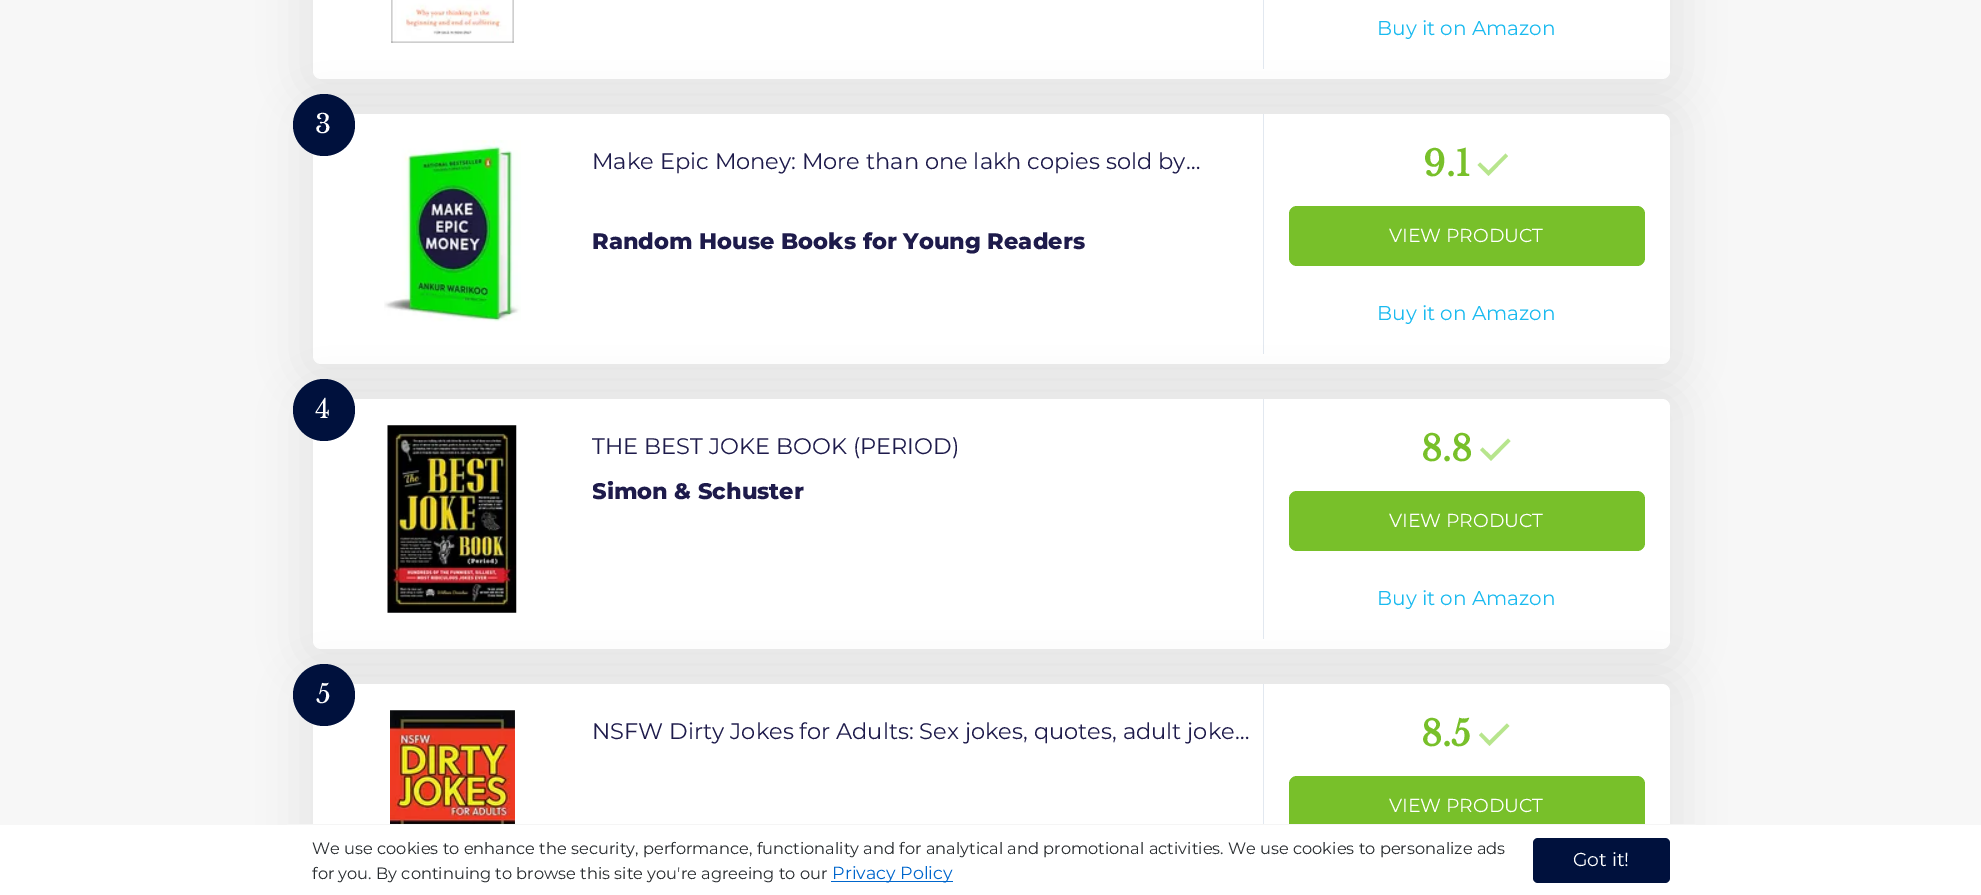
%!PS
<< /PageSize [1981 895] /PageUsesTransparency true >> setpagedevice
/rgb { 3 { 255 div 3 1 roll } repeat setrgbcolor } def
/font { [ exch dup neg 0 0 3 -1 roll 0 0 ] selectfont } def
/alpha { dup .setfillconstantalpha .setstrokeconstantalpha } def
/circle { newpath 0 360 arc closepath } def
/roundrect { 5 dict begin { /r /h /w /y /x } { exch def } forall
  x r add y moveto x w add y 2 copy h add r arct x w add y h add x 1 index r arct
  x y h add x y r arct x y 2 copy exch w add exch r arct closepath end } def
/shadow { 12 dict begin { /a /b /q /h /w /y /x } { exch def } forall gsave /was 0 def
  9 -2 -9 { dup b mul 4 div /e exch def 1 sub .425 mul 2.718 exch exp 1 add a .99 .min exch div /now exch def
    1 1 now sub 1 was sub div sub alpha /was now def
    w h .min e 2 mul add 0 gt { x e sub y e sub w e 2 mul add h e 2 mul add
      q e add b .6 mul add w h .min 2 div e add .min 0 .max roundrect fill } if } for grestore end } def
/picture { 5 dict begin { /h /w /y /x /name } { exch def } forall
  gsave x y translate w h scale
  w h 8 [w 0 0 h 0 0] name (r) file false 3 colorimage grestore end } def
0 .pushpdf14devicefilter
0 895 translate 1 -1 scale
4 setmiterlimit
247 247 247 rgb
0 0 1981 895 rectfill
0 0 0 rgb
294 -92 1395 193 26 22 0.05 shadow
255 255 255 rgb
313 -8 1357 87 8 roundrect fill
(img/1.rgb) 391 0 123 43 picture
226 232 240 rgb
1263 0 1 69 rectfill
0 0 0 rgb
294 99 1395 287 26 22 0.05 shadow
255 255 255 rgb
313 114 1357 250 8 roundrect fill
0 17 61 rgb
324 125 31 circle fill
(img/2.rgb) 384 140 137 182 picture
226 232 240 rgb
1263 114 1 240 rectfill
183 229 141 rgb
1508 156 moveto 1488.5 176 lineto 1477.5 165 lineto 1480 162.5 lineto 1488.5 170.5 lineto 1505.5 153.5 lineto closepath eofill
120 192 42 rgb
1289 206 356 60 8 roundrect fill
0 0 0 rgb
294 384 1395 287 26 22 0.05 shadow
255 255 255 rgb
313 399 1357 250 8 roundrect fill
0 17 61 rgb
324 410 31 circle fill
(img/3.rgb) 387 425 130 188 picture
226 232 240 rgb
1263 399 1 240 rectfill
183 229 141 rgb
1510.5 441 moveto 1491 461 lineto 1480 450 lineto 1482.5 447.5 lineto 1491 455.5 lineto 1508 438.5 lineto closepath eofill
120 192 42 rgb
1289 491 356 60 8 roundrect fill
0 0 0 rgb
294 669 1395 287 26 22 0.05 shadow
255 255 255 rgb
313 684 1357 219 8 roundrect fill
0 17 61 rgb
324 695 31 circle fill
(img/4.rgb) 390 710 125 114 picture
226 232 240 rgb
1263 684 1 140 rectfill
183 229 141 rgb
1509.5 726 moveto 1489.5 746 lineto 1479 735 lineto 1481.5 732.5 lineto 1489.5 740.5 lineto 1507 723.5 lineto closepath eofill
120 192 42 rgb
1289 776 356 60 8 roundrect fill
[
  [0 825 1981 70 255 255 255]
  [287 824 1409 1 245 245 245]
  [831 881 122 1 0 102 204]
] { aload pop rgb rectfill } forall
0 17 61 rgb
1533 838 137 45 5 roundrect fill
/Montserrat-Regular 20 font
26 186 239 rgb
1377 35 moveto (Buy it on Amazon) show
/LibreBaskerville-Regular 26 font
255 255 255 rgb
315 133 moveto (3) show
/Montserrat-Regular 22.5 font
30 27 75 rgb
592 169 moveto (Make Epic Money: More than one lakh copies sold by…) show
/Montserrat-ExtraBold 22.5 font
592 249 moveto (Random House Books for Young Readers) show
/LibreBaskerville-Bold 35 font
120 192 42 rgb
1423 176 moveto (9.1) show
/Montserrat-Regular 18.75 font
255 255 255 rgb
1389 242 moveto (VIEW PRODUCT) show
/Montserrat-Regular 20 font
26 186 239 rgb
1377 320 moveto (Buy it on Amazon) show
/LibreBaskerville-Regular 26 font
255 255 255 rgb
315 418 moveto (4) show
/Montserrat-Regular 22.5 font
30 27 75 rgb
592 454 moveto (THE BEST JOKE BOOK \(PERIOD\)) show
gsave
593 474 211 35 rectclip
/Montserrat-ExtraBold 22.5 font
592 499 moveto (Simon & Schuster) show
grestore
/LibreBaskerville-Bold 35 font
120 192 42 rgb
1421 461 moveto (8.8) show
/Montserrat-Regular 18.75 font
255 255 255 rgb
1389 527 moveto (VIEW PRODUCT) show
/Montserrat-Regular 20 font
26 186 239 rgb
1377 605 moveto (Buy it on Amazon) show
/LibreBaskerville-Regular 26 font
255 255 255 rgb
316 703 moveto (5) show
/Montserrat-Regular 22.5 font
30 27 75 rgb
592 739 moveto (NSFW Dirty Jokes for Adults: Sex jokes, quotes, adult joke…) show
/LibreBaskerville-Bold 35 font
120 192 42 rgb
1421 746 moveto (8.5) show
/Montserrat-Regular 18.75 font
255 255 255 rgb
1389 812 moveto (VIEW PRODUCT) show
/Montserrat-Regular 16.25 font
40 44 47 rgb
312 854 moveto (We use cookies to enhance the security, performance, functionality and for analytical and promotional activities. We use cookies to personalize ads) show
312 879 moveto (for you. By continuing to browse this site you're agreeing to our) show
/Montserrat-Regular 17.5 font
0 102 204 rgb
832 879 moveto (Privacy Policy) show
/Montserrat-Regular 18.75 font
255 255 255 rgb
1573 866 moveto (Got it!) show
.poppdf14devicefilter showpage
